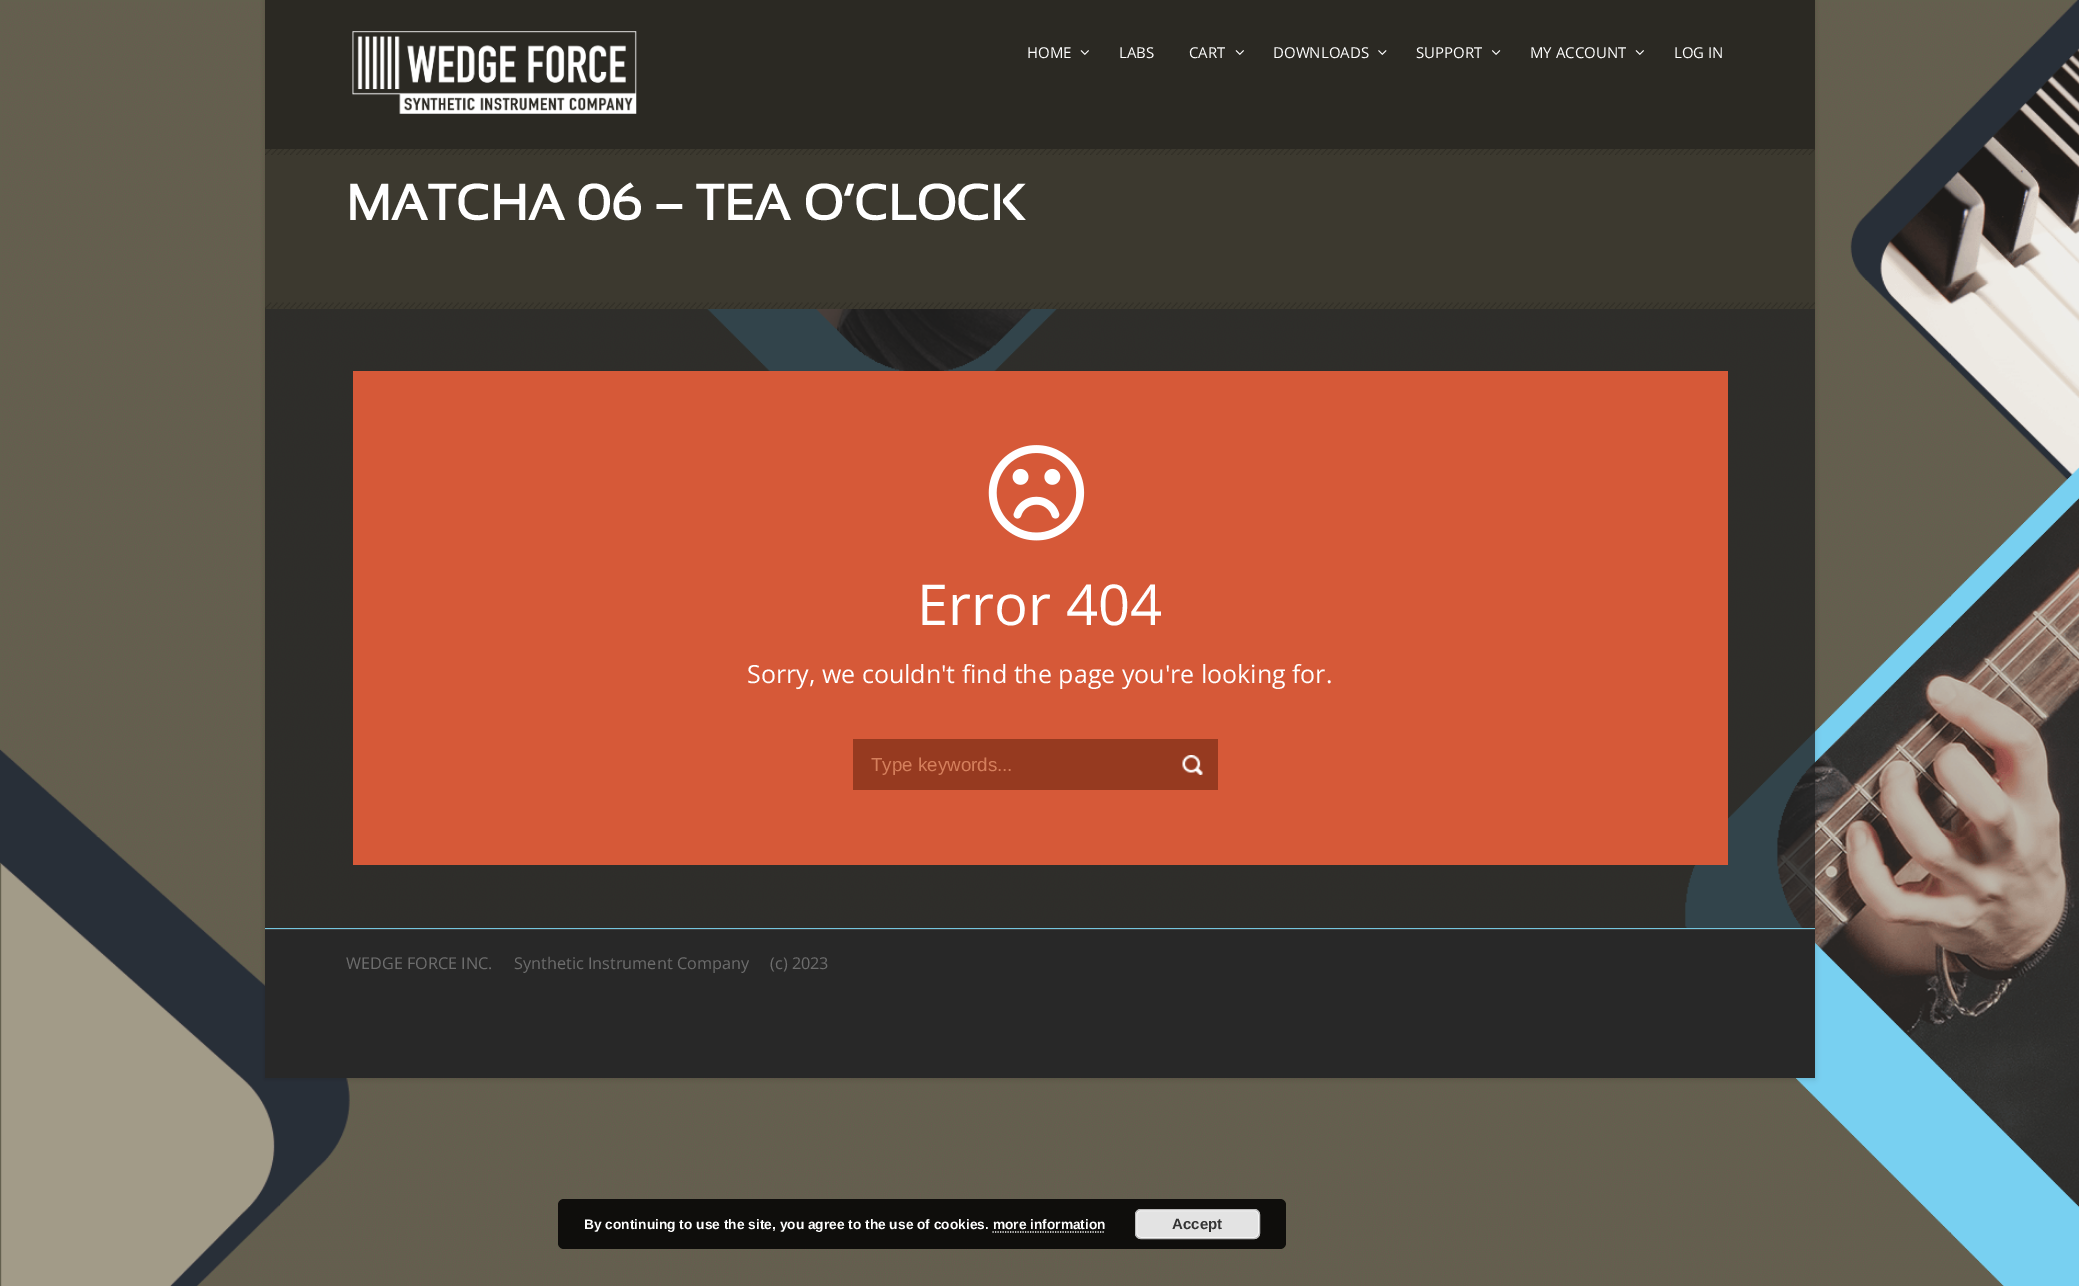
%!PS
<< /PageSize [2079 1286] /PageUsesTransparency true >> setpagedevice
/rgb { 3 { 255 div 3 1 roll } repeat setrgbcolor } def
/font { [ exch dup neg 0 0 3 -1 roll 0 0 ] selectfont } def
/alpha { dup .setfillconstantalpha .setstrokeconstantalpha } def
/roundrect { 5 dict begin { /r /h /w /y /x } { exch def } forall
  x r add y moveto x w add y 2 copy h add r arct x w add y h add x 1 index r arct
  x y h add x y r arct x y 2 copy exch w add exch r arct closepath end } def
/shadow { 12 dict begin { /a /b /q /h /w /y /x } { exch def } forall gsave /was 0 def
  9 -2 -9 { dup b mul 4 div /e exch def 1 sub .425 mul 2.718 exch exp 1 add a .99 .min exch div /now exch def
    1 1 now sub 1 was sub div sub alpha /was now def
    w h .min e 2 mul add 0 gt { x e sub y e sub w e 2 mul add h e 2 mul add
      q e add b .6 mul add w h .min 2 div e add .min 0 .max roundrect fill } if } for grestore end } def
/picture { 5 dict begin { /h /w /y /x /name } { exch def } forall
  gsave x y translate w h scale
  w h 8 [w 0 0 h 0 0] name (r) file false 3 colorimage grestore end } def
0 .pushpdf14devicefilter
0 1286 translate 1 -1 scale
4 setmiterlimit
255 255 255 rgb
0 0 2079 1286 rectfill
(img/1.rgb) 0 0 2079 1286 picture
gsave
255 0 moveto 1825 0 lineto 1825 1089 lineto 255 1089 lineto closepath 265 -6 moveto 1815 -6 lineto 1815 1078 lineto 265 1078 lineto closepath eoclip newpath
0 0 0 rgb
265 -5 1550 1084 0 3 0.15 shadow
grestore
43 41 35 rgb
265 0 1550 149 rectfill
(img/2.rgb) 352 31 285 83 picture
(img/3.rgb) 1080 50 9 5 picture
(img/3.rgb) 1235 50 9 5 picture
(img/4.rgb) 1378 50 9 5 picture
(img/5.rgb) 1491 50 10 5 picture
(img/3.rgb) 1635 50 9 5 picture
60 57 47 rgb
265 149 1550 160 rectfill
(img/6.rgb) 265 149 1550 6 picture
(img/7.rgb) 265 302 1550 7 picture
0.8 alpha
33 33 33 rgb
265 309 1550 619 rectfill
1 alpha
214 89 56 rgb
353 371 1375 494 rectfill
(img/8.rgb) 988 445 97 96 picture
150 58 32 rgb
853 739 365 51 rectfill
(img/9.rgb) 1182 755 21 20 picture
[
  [265 928 1550 1 116 198 222]
  [265 930 1550 148 40 40 40]
  [265 929 1550 1 63 63 63]
] { aload pop rgb rectfill } forall
0.85 alpha
0 0 0 rgb
558 1199 728 50 6 roundrect fill
1 alpha
227 227 227 rgb
1135 1209 125 30 6 roundrect fill
246 246 246 rgb
1136.5 1210.5 122 27 4.5 roundrect stroke
187 187 187 rgb
1135.5 1209.5 124 29 5.5 roundrect stroke
255 255 255 rgb
1.2 setlinewidth
[1.25 1.25] 0 setdash
992.5 1232 moveto 1105 1232 lineto stroke
/OpenSans-Regular 15 font
[
  [(HOME) 1027 58]
  [(LABS) 1119 58]
  [(CART) 1189 58]
  [(DOWNLOADS) 1273 58]
  [(SUPPORT) 1416 58]
  [(MY ACCOUNT) 1530 58]
  [(LOG IN) 1674 58]
] { aload pop moveto show } forall
/Sansation-Bold 50 font
346 220 moveto (MATCHA 06 – TEA O’CLOCK) show
/OpenSans-Regular 56.25 font
917 625 moveto (Error 404) show
/OpenSans-Regular 25 font
747 683 moveto (Sorry, we couldn't find the page you're looking for.) show
/LiberationSans-Regular 18.75 font
213 127 92 rgb
871 771 moveto (Type keywords...) show
/OpenSans-Regular 16.25 font
109 109 109 rgb
[
  [(WEDGE FORCE INC.) 346 969]
  [(Synthetic Instrument Company) 514 969]
  [(\(c\) 2023) 770 969]
] { aload pop moveto show } forall
/LiberationSans-Bold 13.75 font
255 255 255 rgb
584 1229 moveto (By continuing to use the site, you agree to the use of cookies. more information) show
/LiberationSans-Bold 15 font
51 51 51 rgb
1172 1229 moveto (Accept) show
.poppdf14devicefilter showpage
